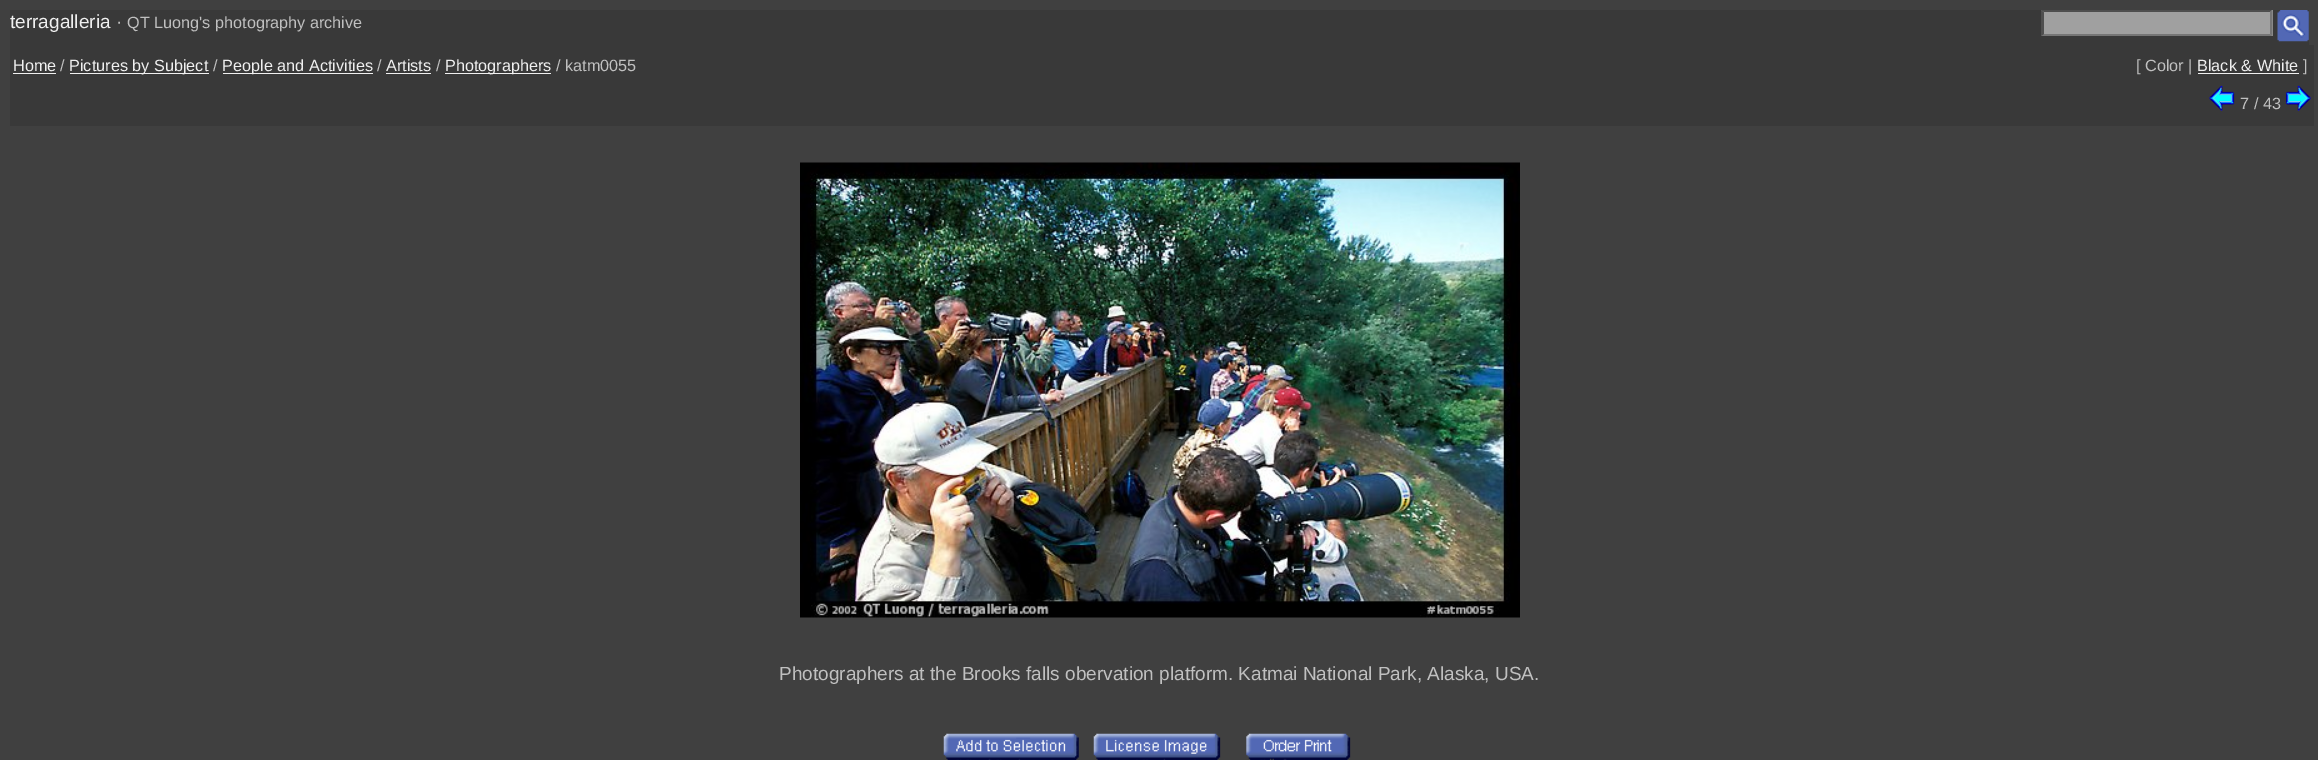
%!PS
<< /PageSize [2318 760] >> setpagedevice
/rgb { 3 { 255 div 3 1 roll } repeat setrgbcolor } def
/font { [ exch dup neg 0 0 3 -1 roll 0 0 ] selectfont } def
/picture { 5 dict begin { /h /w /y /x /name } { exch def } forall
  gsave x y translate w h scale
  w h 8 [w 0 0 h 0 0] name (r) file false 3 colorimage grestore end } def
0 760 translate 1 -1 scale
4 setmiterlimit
64 64 64 rgb
0 0 2318 760 rectfill
57 57 57 rgb
10 10 2299 35 rectfill
160 160 160 rgb
2041 10 232 26 rectfill
79 79 79 rgb
2041 10 moveto 2272 10 lineto 2270 12 lineto 2044 12 lineto closepath fill
118 118 118 rgb
2272.5 10 moveto 2272.5 36 lineto 2270 34 lineto 2270 12.5 lineto closepath fill
2272 36 moveto 2041 36 lineto 2044 34 lineto 2270 34 lineto closepath fill
79 79 79 rgb
2041 36 moveto 2041 10 lineto 2044 12.5 lineto 2044 34 lineto closepath fill
(img/1.rgb) 2277 10 32 32 picture
[
  [10 45 2304 81 57 57 57]
  [13 73 43 1 240 240 240]
  [70 73 139 1 240 240 240]
  [223 73 150 1 240 240 240]
  [386 73 45 1 240 240 240]
  [445 73 106 1 240 240 240]
  [2198 73 101 1 240 240 240]
] { aload pop rgb rectfill } forall
(img/2.rgb) 2209 85 26 26 picture
(img/3.rgb) 2285 85 26 26 picture
(img/4.rgb) 800 162 720 456 picture
(img/5.rgb) 943 733 136 27 picture
(img/6.rgb) 1093 733 128 27 picture
(img/7.rgb) 1246 733 105 27 picture
/LiberationSans-Regular 19 font
10 28 moveto (terragalleria) show
192 192 192 rgb
116 28 moveto (·) show
/LiberationSans-Regular 16.25 font
127 28 moveto (QT Luong's photography archive) show
240 240 240 rgb
13 71 moveto (Home) show
192 192 192 rgb
60 71 moveto (/) show
240 240 240 rgb
69 71 moveto (Pictures by Subject) show
192 192 192 rgb
213 71 moveto (/) show
240 240 240 rgb
222 71 moveto (People and Activities) show
192 192 192 rgb
377 71 moveto (/) show
240 240 240 rgb
386 71 moveto (Artists) show
192 192 192 rgb
436 71 moveto (/) show
240 240 240 rgb
445 71 moveto (Photographers) show
192 192 192 rgb
556 71 moveto (/ katm0055) show
2136 71 moveto ([ Color |) show
240 240 240 rgb
2197 71 moveto (Black & White) show
192 192 192 rgb
2303 71 moveto (]) show
2240 109 moveto (7 / 43) show
/LiberationSans-Regular 19 font
779 680 moveto (Photographers at the Brooks falls obervation platform. Katmai National Park, Alaska, USA.) show
showpage
